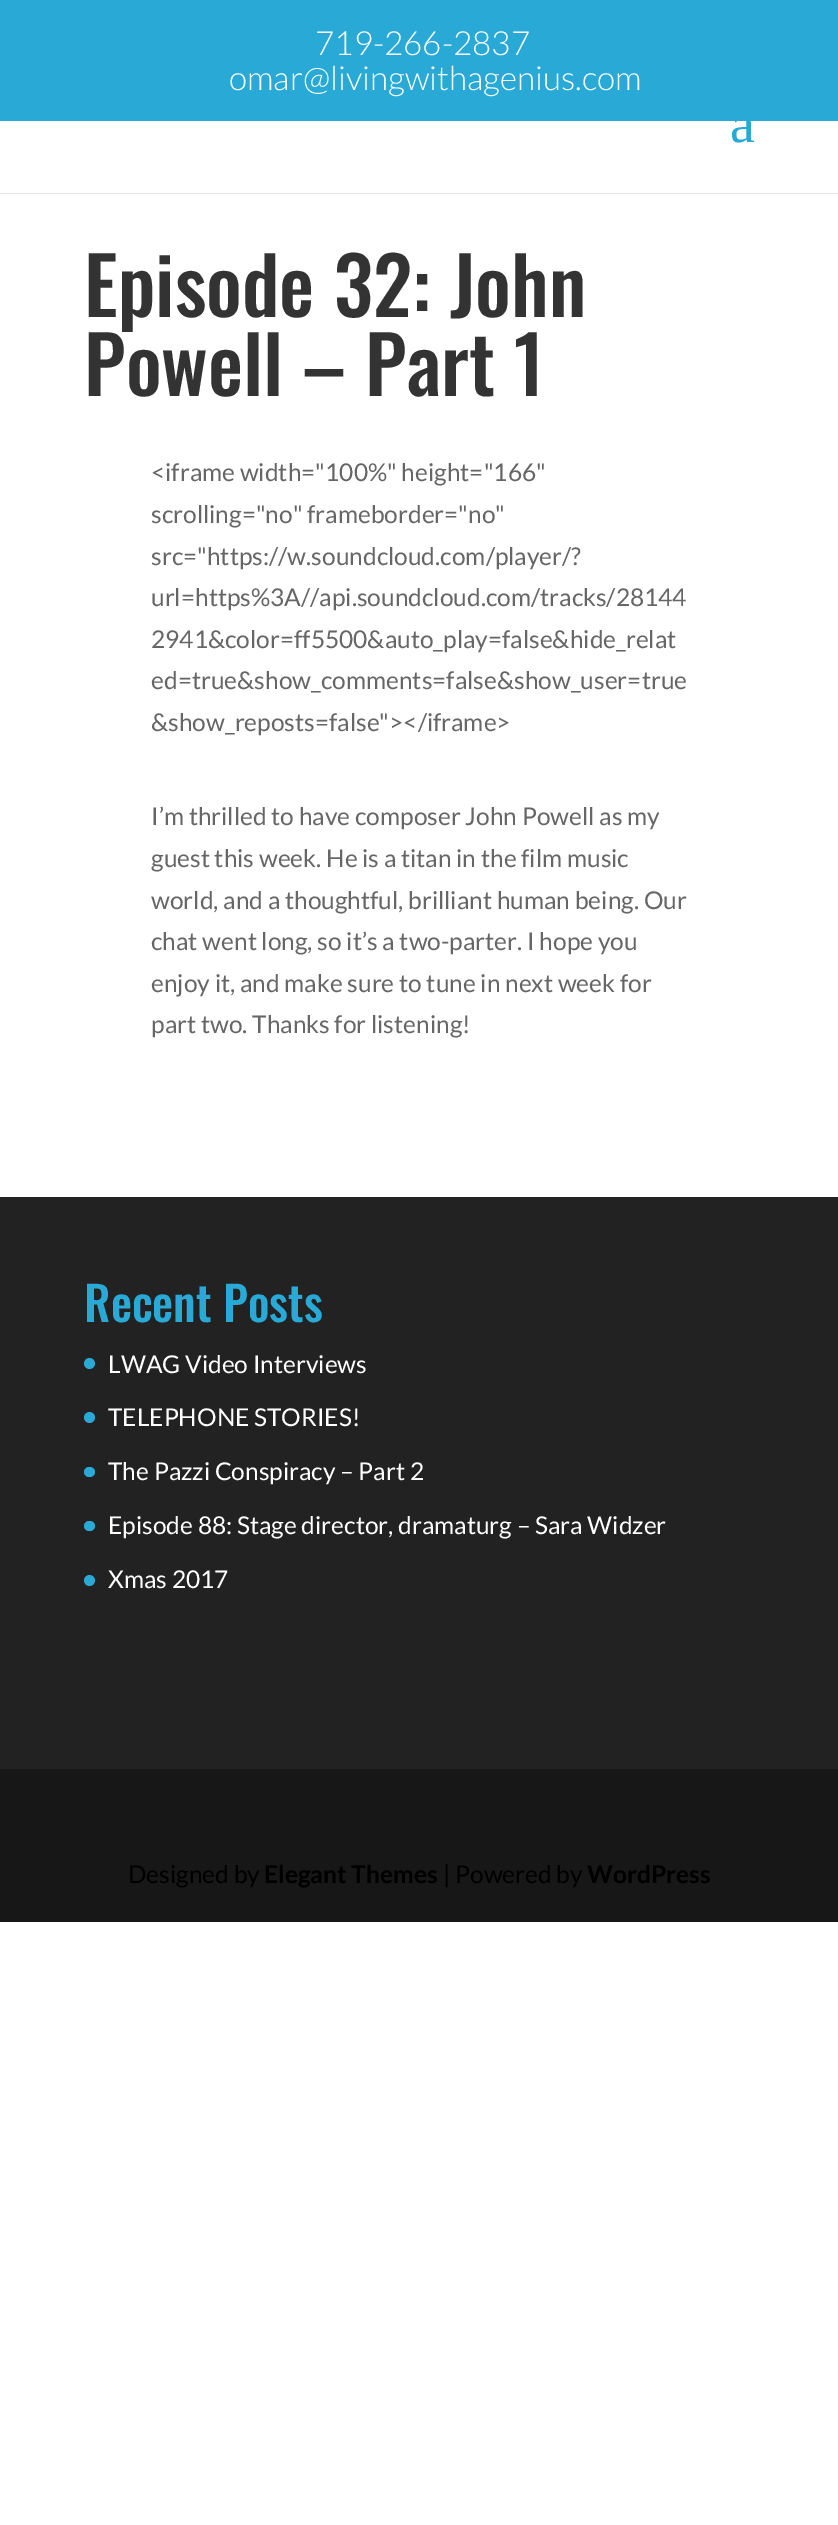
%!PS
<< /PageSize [838 2525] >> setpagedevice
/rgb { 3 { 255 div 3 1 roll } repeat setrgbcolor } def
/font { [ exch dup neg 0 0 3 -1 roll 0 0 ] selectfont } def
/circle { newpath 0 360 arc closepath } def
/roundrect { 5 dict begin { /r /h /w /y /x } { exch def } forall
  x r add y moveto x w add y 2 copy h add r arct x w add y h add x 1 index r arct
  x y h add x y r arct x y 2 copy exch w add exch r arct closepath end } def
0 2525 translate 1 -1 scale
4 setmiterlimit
255 255 255 rgb
0 0 838 2525 rectfill
[
  [0 0 838 121 41 170 214]
  [0 193 838 1 230 230 230]
  [0 1197 838 572 34 34 34]
] { aload pop rgb rectfill } forall
41 170 214 rgb
89.5 1363.5 5.5 circle fill
89.5 1417.5 5.5 circle fill
84 1467 11 10 5 roundrect fill
84 1521 11 10 5 roundrect fill
89.5 1580.5 5.5 circle fill
23 23 23 rgb
0 1769 838 153 rectfill
/Lato-Light 33.25 font
255 255 255 rgb
315 55 moveto (719-266-2837) show
229 90 moveto (omar@livingwithagenius.com) show
/LiberationSerif-Regular 56 font
41 170 214 rgb
730 142 moveto (a) show
/Oswald-Medium 78.75 font
51 51 51 rgb
84 317 moveto (Episode 32: John) show
84 396 moveto (Powell – Part 1) show
/Lato-Regular 24.5 font
102 102 102 rgb
[
  [(<iframe width="100%" height="166") 151 481]
  [(scrolling="no" frameborder="no") 151 523]
  [(src="https://w.soundcloud.com/player/?) 151 565]
  [(url=https%3A//api.soundcloud.com/tracks/28144) 151 606]
  [(2941&color=ff5500&auto_play=false&hide_relat) 151 648]
  [(ed=true&show_comments=false&show_user=true) 151 689]
  [(&show_reposts=false"></iframe>) 151 731]
  [(I’m thrilled to have composer John Powell as my) 151 825]
  [(guest this week. He is a titan in the film music) 151 867]
  [(world, and a thoughtful, brilliant human being. Our) 151 909]
  [(chat went long, so it’s a two-parter. I hope you) 151 950]
  [(enjoy it, and make sure to tune in next week for) 151 992]
  [(part two. Thanks for listening!) 151 1033]
] { aload pop moveto show } forall
/Oswald-Medium 47.25 font
41 170 214 rgb
84 1322 moveto (Recent Posts) show
/Lato-Regular 24.5 font
255 255 255 rgb
[
  [(LWAG Video Interviews) 108 1373]
  [(TELEPHONE STORIES!) 108 1426]
  [(The Pazzi Conspiracy – Part 2) 108 1480]
  [(Episode 88: Stage director, dramaturg – Sara Widzer) 108 1534]
  [(Xmas 2017) 108 1588]
] { aload pop moveto show } forall
0 0 0 rgb
128 1883 moveto (Designed by) show
/Lato-Bold 24.5 font
264 1883 moveto (Elegant Themes) show
/Lato-Regular 24.5 font
443 1883 moveto (| Powered by) show
/Lato-Bold 24.5 font
587 1883 moveto (WordPress) show
showpage
